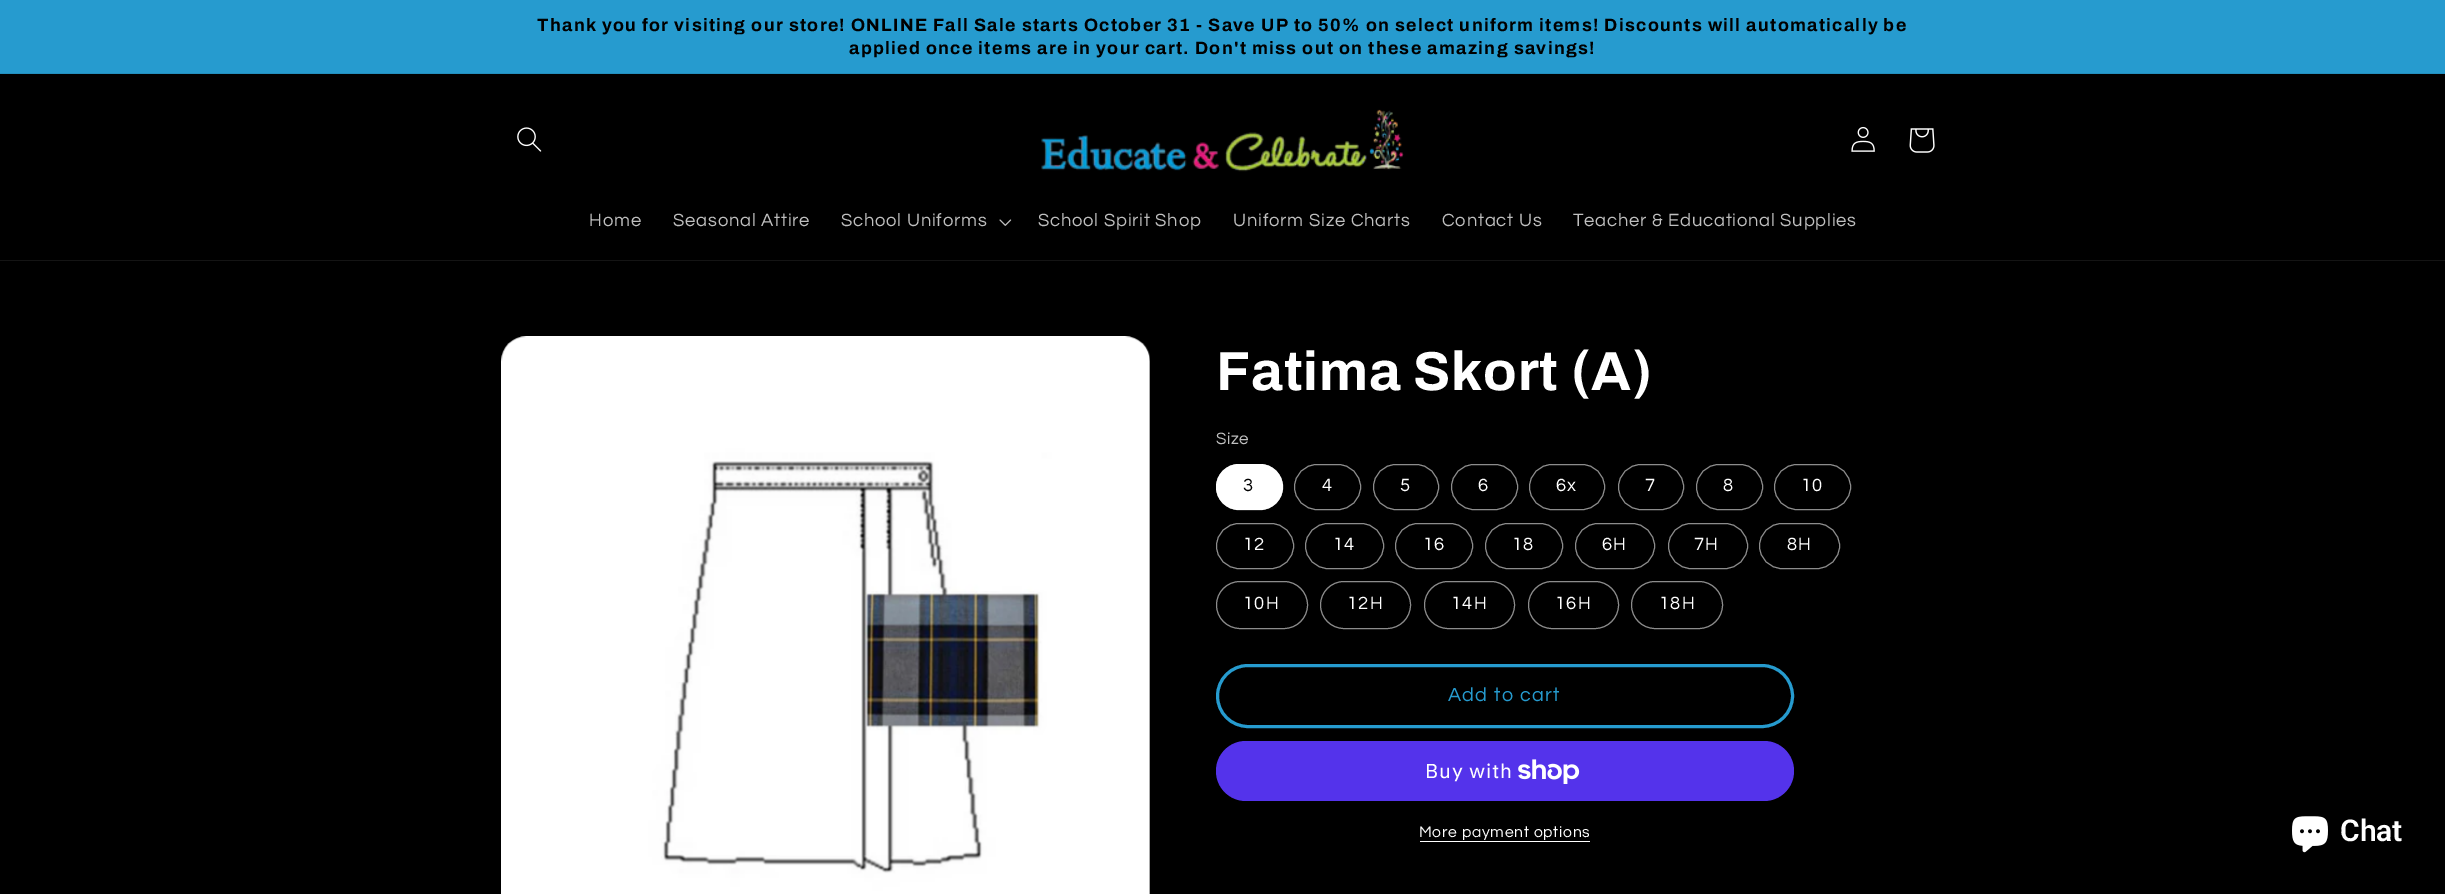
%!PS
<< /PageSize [2445 894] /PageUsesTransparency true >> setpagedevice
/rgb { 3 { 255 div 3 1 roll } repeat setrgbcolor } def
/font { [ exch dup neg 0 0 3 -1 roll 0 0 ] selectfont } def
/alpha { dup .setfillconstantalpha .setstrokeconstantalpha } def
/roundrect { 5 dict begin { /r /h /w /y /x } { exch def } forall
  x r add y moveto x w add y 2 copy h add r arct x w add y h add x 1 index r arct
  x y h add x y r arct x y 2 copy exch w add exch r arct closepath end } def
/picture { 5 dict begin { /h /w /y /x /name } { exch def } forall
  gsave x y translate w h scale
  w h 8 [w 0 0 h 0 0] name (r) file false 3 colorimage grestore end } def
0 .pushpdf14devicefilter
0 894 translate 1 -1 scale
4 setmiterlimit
0 0 0 rgb
0 0 2445 894 rectfill
[
  [0 0 2445 73 38 155 207]
  [0 73 2445 1 35 143 190]
  [0 260 2445 1 20 20 20]
] { aload pop rgb rectfill } forall
(img/1.rgb) 517 127 25 25 picture
(img/2.rgb) 1041 109 363 63 picture
(img/3.rgb) 1851 126 24 26 picture
(img/4.rgb) 1909 128 26 25 picture
(img/5.rgb) 999 219 13 7 picture
(img/6.rgb) 501 336 649 558 picture
255 255 255 rgb
1216 464 67 46 23 roundrect fill
0.55 alpha
1216.5 464.5 66 45 22.5 roundrect stroke
1 alpha
140 140 140 rgb
1294.5 464.5 66 45 22.5 roundrect stroke
1373.5 464.5 65 45 22.5 roundrect stroke
1451.5 464.5 66 45 22.5 roundrect stroke
1529.5 464.5 75 45 22.5 roundrect stroke
1618.5 464.5 65 45 22.5 roundrect stroke
1696.5 464.5 66 45 22.5 roundrect stroke
1774.5 464.5 76 45 22.5 roundrect stroke
1216.5 523.5 77 45 22.5 roundrect stroke
1305.5 523.5 78 45 22.5 roundrect stroke
1395.5 523.5 77 45 22.5 roundrect stroke
1485.5 523.5 77 45 22.5 roundrect stroke
1575.5 523.5 79 45 22.5 roundrect stroke
1668.5 523.5 79 45 22.5 roundrect stroke
1759.5 523.5 80 45 22.5 roundrect stroke
1216.5 581.5 91 47 23.5 roundrect stroke
1320.5 581.5 90 47 23.5 roundrect stroke
1424.5 581.5 90 47 23.5 roundrect stroke
1528.5 581.5 90 47 23.5 roundrect stroke
1631.5 581.5 91 47 23.5 roundrect stroke
38 155 207 rgb
3 setlinewidth
1217.5 665.5 575 61 30.5 roundrect stroke
84 51 235 rgb
1216 741 578 60 30 roundrect fill
(img/7.rgb) 1518 759 62 25 picture
255 255 255 rgb
1420 841 170 1 rectfill
(img/8.rgb) 2292 816 36 37 picture
/Archivo-Bold 17.88 font
0 0 0 rgb
537 31 moveto 1.31 0 (Thank you for visiting our store! ONLINE Fall Sale starts October 31 - Save UP to 50% on select uniform items! Discounts will automatically be) ashow
849 54 moveto 1.31 0 (applied once items are in your cart. Don't miss out on these amazing savings!) ashow
/Questrial-Regular 18.4 font
191 191 191 rgb
589 226 moveto 0.8 0 (Home) ashow
673 226 moveto 0.8 0 (Seasonal Attire) ashow
841 226 moveto 0.8 0 (School Uniforms) ashow
1038 226 moveto 0.8 0 (School Spirit Shop) ashow
1233 226 moveto 0.8 0 (Uniform Size Charts) ashow
1442 226 moveto 0.8 0 (Contact Us) ashow
1573 226 moveto 0.8 0 (Teacher & Educational Supplies) ashow
/Archivo-Bold 55 font
255 255 255 rgb
1216 390 moveto 0.8 0 (Fatima Skort \(A\)) ashow
/Questrial-Regular 17 font
191 191 191 rgb
1216 444 moveto 0.5 0 (Size) ashow
/Questrial-Regular 18.4 font
0 0 0 rgb
1243 491 moveto 1.31 0 (3) ashow
255 255 255 rgb
1322 491 moveto 1.31 0 (4) ashow
1400 491 moveto 1.31 0 (5) ashow
1478 491 moveto 1.31 0 (6) ashow
1556 491 moveto 1.31 0 (6x) ashow
1645 491 moveto 1.31 0 (7) ashow
1723 491 moveto 1.31 0 (8) ashow
1801 491 moveto 1.31 0 (10) ashow
1243 550 moveto 1.31 0 (12) ashow
1333 550 moveto 1.31 0 (14) ashow
1423 550 moveto 1.31 0 (16) ashow
1512 550 moveto 1.31 0 (18) ashow
1602 550 moveto 1.31 0 (6H) ashow
1694 550 moveto 1.31 0 (7H) ashow
1787 550 moveto 1.31 0 (8H) ashow
1243 609 moveto 1.31 0 (10H) ashow
1347 609 moveto 1.31 0 (12H) ashow
1451 609 moveto 1.31 0 (14H) ashow
1555 609 moveto 1.31 0 (16H) ashow
1659 609 moveto 1.31 0 (18H) ashow
/Questrial-Regular 19.75 font
38 155 207 rgb
1448 701 moveto 1.31 0 (Add to cart) ashow
/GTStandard-Regular 20 font
255 255 255 rgb
1425 778 moveto 0.8 0 (Buy with) ashow
/Questrial-Regular 15.75 font
1419 837 moveto 0.7 0 (More payment options) ashow
/Roboto-SemiBold 30 font
2340 841 moveto (Chat) show
.poppdf14devicefilter showpage
